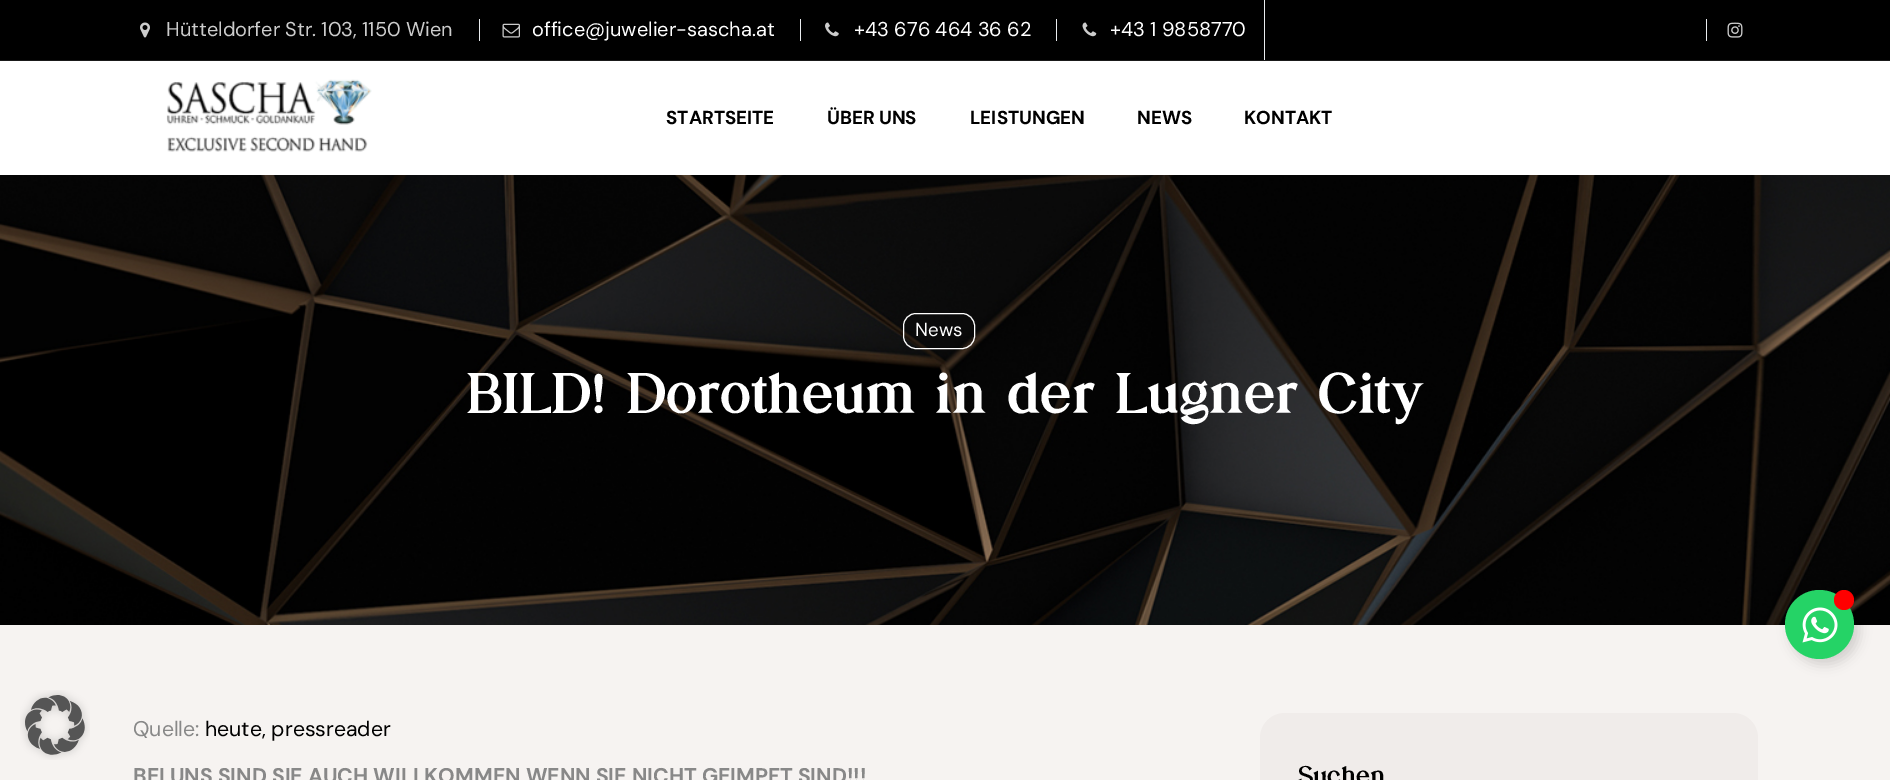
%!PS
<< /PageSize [1890 780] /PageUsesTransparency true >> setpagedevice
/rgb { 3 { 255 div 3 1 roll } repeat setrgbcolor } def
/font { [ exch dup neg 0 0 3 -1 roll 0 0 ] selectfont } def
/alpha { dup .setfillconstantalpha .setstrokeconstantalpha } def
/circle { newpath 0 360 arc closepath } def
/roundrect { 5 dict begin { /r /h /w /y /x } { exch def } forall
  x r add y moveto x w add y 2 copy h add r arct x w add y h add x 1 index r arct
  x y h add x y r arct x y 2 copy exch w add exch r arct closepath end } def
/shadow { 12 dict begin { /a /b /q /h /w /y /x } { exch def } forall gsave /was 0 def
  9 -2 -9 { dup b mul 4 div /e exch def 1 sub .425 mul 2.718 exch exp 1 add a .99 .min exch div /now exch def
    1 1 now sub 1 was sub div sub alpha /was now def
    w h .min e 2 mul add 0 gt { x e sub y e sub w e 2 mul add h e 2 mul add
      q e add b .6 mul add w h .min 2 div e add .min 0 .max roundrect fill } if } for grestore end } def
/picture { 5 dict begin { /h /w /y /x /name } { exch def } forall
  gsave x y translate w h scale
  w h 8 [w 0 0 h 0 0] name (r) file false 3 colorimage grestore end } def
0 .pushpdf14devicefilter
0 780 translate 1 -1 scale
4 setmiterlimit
246 243 241 rgb
0 0 1890 780 rectfill
0 0 0 rgb
0 0 1890 60 rectfill
26 26 26 rgb
0 60 1890 1 rectfill
(img/1.rgb) 140 22 10 16 picture
233 236 239 rgb
479 19 1 22 rectfill
(img/2.rgb) 502 23 18 15 picture
800 19 1 22 rectfill
(img/3.rgb) 825 22 14 15 picture
1056 19 1 22 rectfill
(img/4.rgb) 1082 22 15 15 picture
1264 0 1 60 rectfill
1706 19 1 22 rectfill
(img/5.rgb) 1727 22 16 16 picture
255 255 255 rgb
0 61 1890 114 rectfill
(img/6.rgb) 166 79 206 73 picture
(img/7.rgb) 0 175 1890 450 picture
903.5 313.5 71 35 12.5 roundrect stroke
240 236 234 rgb
1260 713 498 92 25 roundrect fill
0 0 0 rgb
1790 595 69 69 34.5 6 0.15 shadow
37 211 102 rgb
1819.5 624.5 34.5 circle fill
(img/8.rgb) 1802 607 36 36 picture
255 0 0 rgb
1844 600 10 circle fill
(img/9.rgb) 20 690 70 70 picture
/DMSans-Regular 20 font
204 204 204 rgb
166 36 moveto (Hütteldorfer Str. 103, 1150 Wien) show
255 255 255 rgb
[
  [(office@juwelier-sascha.at) 532 36]
  [(+43 676 464 36 62) 854 36]
  [(+43 1 9858770) 1110 36]
] { aload pop moveto show } forall
/DMSans-Bold 18.75 font
0 0 0 rgb
[
  [(STARTSEITE) 666 124]
  [(ÜBER UNS) 827 124]
  [(LEISTUNGEN) 970 124]
  [(NEWS) 1137 124]
  [(KONTAKT) 1244 124]
] { aload pop moveto show } forall
/DMSans-Regular 18.75 font
255 255 255 rgb
915 336 moveto (News) show
/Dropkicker-Bold 56.25 font
466 413 moveto (BILD! Dorotheum in der Lugner City) show
/DMSans-Regular 21.25 font
136 136 136 rgb
133 736 moveto (Quelle:) show
0 0 0 rgb
205 736 moveto (heute, pressreader) show
/DMSans-Bold 21.25 font
136 136 136 rgb
133 783 moveto (BEI UNS SIND SIE AUCH WILLKOMMEN WENN SIE NICHT GEIMPFT SIND!!!) show
/Dropkicker-Bold 25 font
0 0 0 rgb
1298 784 moveto (Suchen) show
.poppdf14devicefilter showpage
